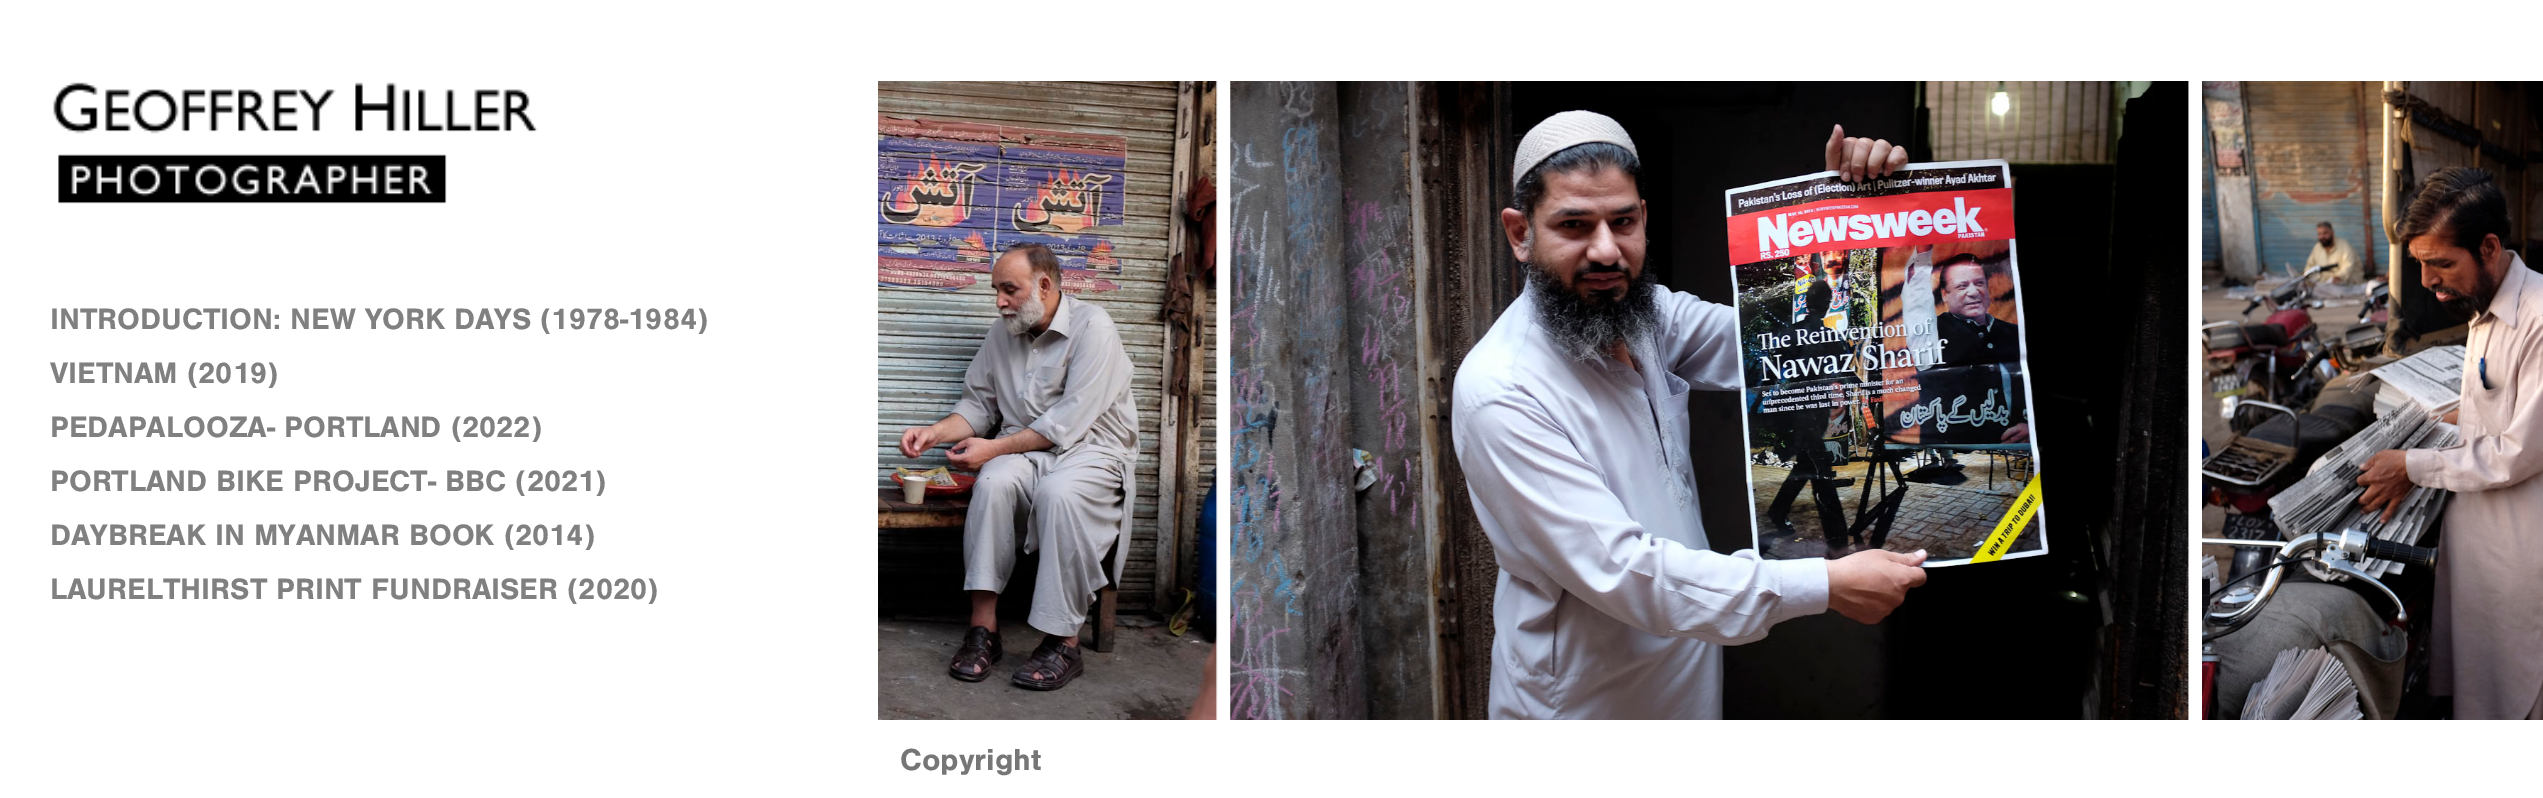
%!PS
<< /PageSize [2543 798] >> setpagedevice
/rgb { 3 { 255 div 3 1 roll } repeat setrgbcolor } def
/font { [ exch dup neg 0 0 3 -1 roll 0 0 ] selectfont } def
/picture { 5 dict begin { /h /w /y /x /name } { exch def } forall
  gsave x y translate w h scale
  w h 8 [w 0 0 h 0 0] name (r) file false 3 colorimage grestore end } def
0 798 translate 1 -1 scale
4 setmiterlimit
255 255 255 rgb
0 0 2543 798 rectfill
(img/1.rgb) 53 82 485 122 picture
(img/2.rgb) 878 81 340 639 picture
(img/3.rgb) 1230 81 959 639 picture
(img/4.rgb) 2202 81 341 639 picture
/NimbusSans-Bold 30.6 font
128 128 128 rgb
[
  [(INTRODUCTION: NEW YORK DAYS \(1978-1984\)) 50 329]
  [(VIETNAM \(2019\)) 50 383]
  [(PEDAPALOOZA- PORTLAND \(2022\)) 50 437]
  [(PORTLAND BIKE PROJECT- BBC \(2021\)) 50 491]
  [(DAYBREAK IN MYANMAR BOOK \(2014\)) 50 545]
  [(LAURELTHIRST PRINT FUNDRAISER \(2020\)) 50 599]
] { aload pop moveto show } forall
/NimbusSans-Bold 31.5 font
118 118 118 rgb
900 770 moveto (Copyright) show
showpage
